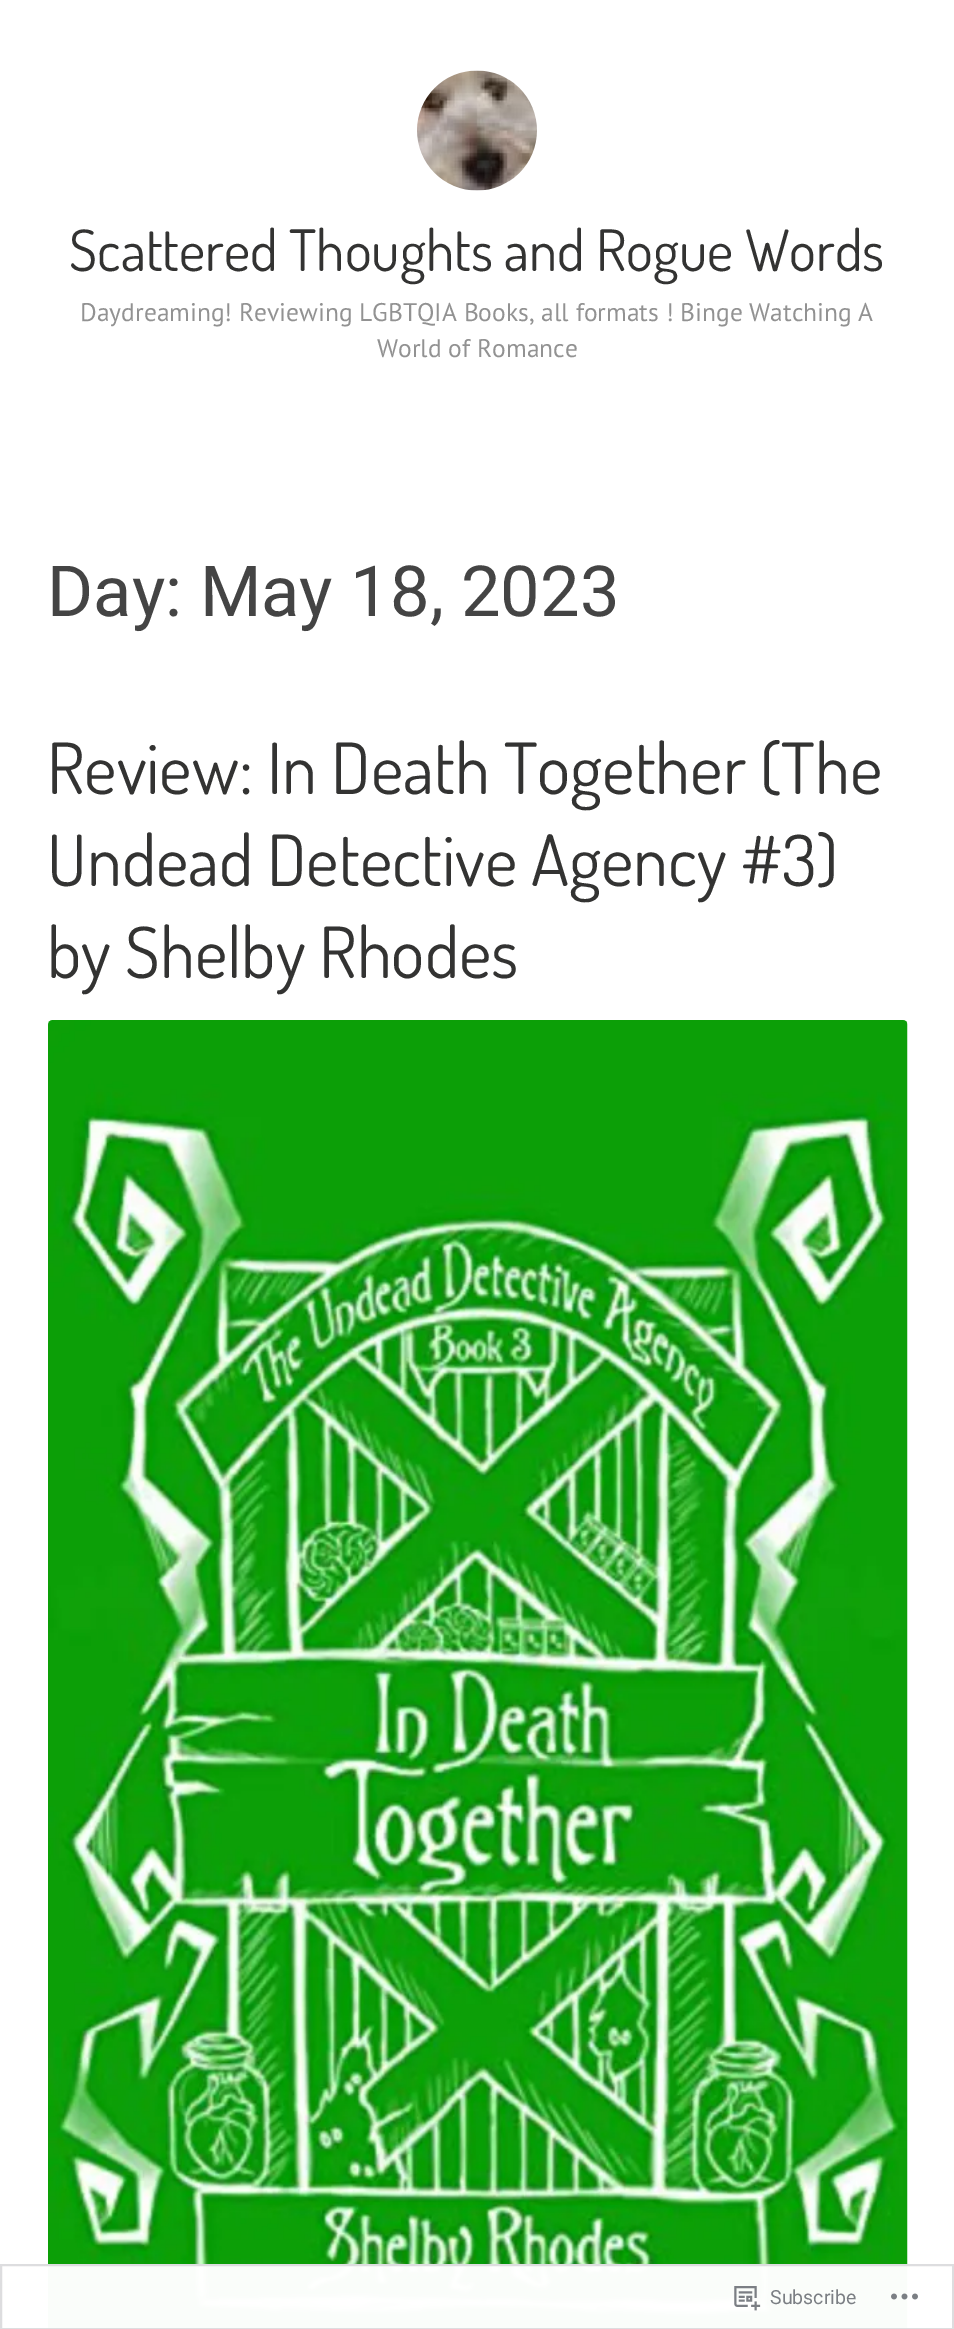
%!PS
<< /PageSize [954 2329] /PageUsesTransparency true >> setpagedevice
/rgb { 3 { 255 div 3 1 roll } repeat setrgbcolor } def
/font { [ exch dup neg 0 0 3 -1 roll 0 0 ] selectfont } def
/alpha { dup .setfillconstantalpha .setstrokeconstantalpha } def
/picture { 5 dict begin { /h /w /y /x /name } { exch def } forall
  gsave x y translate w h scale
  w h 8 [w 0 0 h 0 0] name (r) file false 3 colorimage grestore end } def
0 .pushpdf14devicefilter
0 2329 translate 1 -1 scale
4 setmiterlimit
255 255 255 rgb
0 0 954 2329 rectfill
(img/1.rgb) 417 70 120 121 picture
(img/2.rgb) 48 1020 860 1309 picture
0.98 alpha
48 2264 860 65 rectfill
220 220 222 rgb
2 setlinewidth
1 2265 952 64 rectstroke
1 alpha
(img/3.rgb) 734 2286 27 25 picture
(img/4.rgb) 891 2293 27 7 picture
/Dosis-Regular 57 font
51 51 50 rgb
69 271 moveto (Scattered Thoughts and Rogue Words) show
/PTSans-Regular 25.5 font
146 146 146 rgb
80 321 moveto (Daydreaming! Reviewing LGBTQIA Books, all formats ! Binge Watching A) show
377 357 moveto (World of Romance) show
/Roboto-Regular 70.5 font
68 68 68 rgb
47 616 moveto (Day: May 18, 2023) show
/Dosis-Regular 70.5 font
51 51 50 rgb
[
  [(Review: In Death Together \(The) 47 794]
  [(Undead Detective Agency #3\)) 47 886]
  [(by Shelby Rhodes) 47 978]
] { aload pop moveto show } forall
/Roboto-Regular 19.5 font
123 127 132 rgb
770 2304 moveto (Subscribe) show
.poppdf14devicefilter showpage
